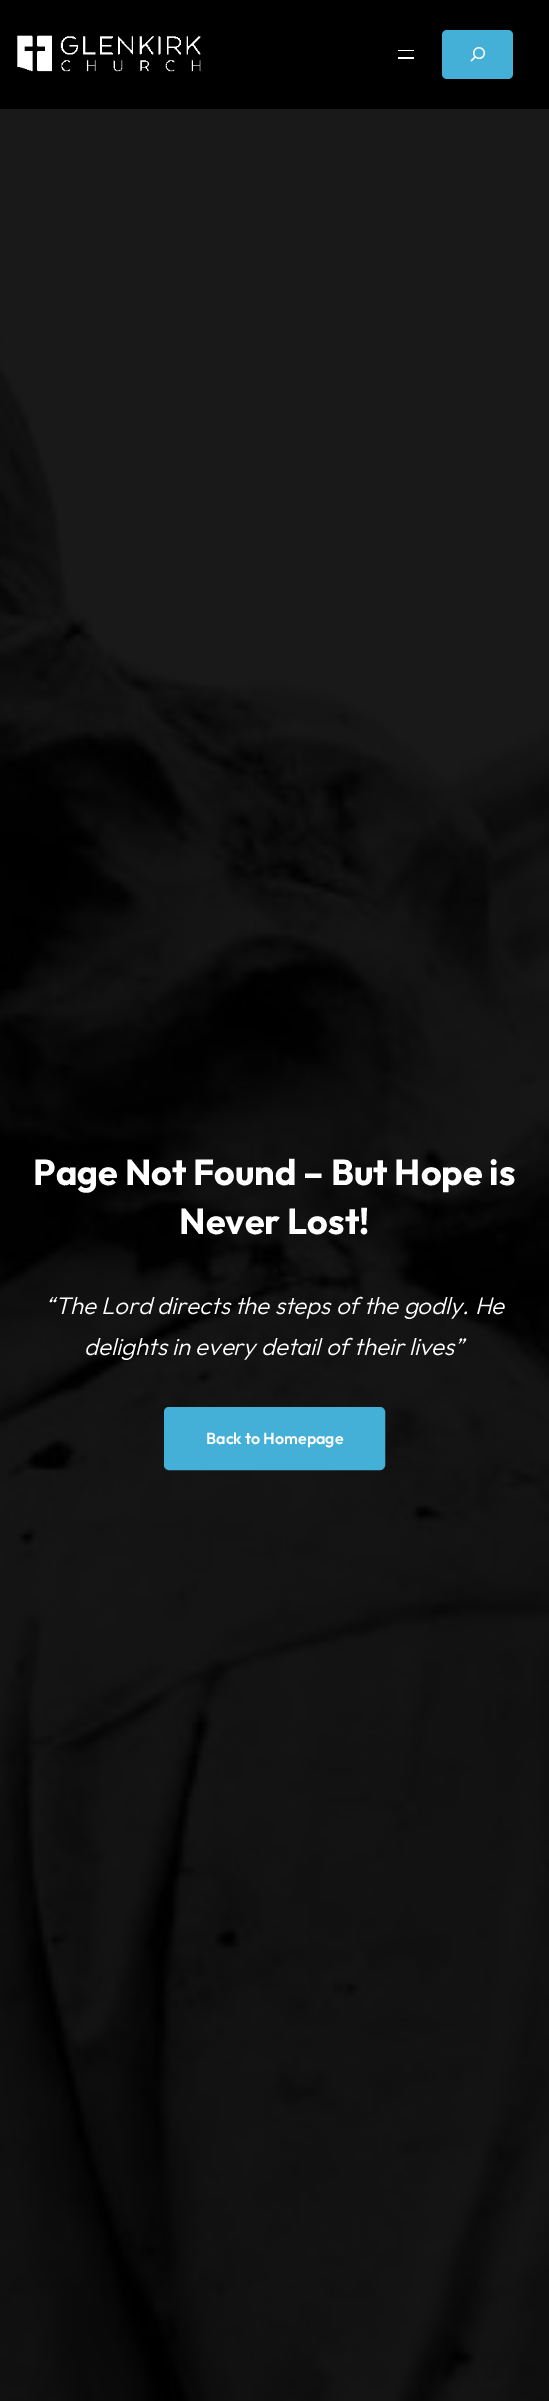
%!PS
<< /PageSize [549 2401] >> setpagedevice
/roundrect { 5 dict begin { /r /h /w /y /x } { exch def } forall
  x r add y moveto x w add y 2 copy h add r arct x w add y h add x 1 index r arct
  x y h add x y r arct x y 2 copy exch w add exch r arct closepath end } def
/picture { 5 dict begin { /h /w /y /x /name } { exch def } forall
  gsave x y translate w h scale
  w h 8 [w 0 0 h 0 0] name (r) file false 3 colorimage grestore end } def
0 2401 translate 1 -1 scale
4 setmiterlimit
0 setgray
0 0 549 2401 rectfill
(img1.rgb) 17 35 184 37 picture
1 setgray
398 50 16 1 rectfill
398 57 16 2 rectfill
0.267 0.69 0.843 setrgbcolor
442 30 71 49 5 roundrect fill
(img2.rgb) 470 47 16 15 picture
(img3.rgb) 0 109 549 2292 picture
/Outfit-Bold [36 0 0 -36 0 0] selectfont
1 setgray
33 1185 moveto (Page Not Found – But Hope is) show
179 1234 moveto (Never Lost!) show
/Outfit-LightItalic [24 0 0 -24 0 0] selectfont
45 1314 moveto (“The Lord directs the steps of the godly. He) show
84 1355 moveto (delights in every detail of their lives”) show
0.267 0.69 0.843 setrgbcolor
165 1408 219 61 4 roundrect gsave fill grestore
2 setlinewidth
stroke
/Outfit-SemiBold [16 0 0 -16 0 0] selectfont
1 setgray
206 1444 moveto (Back to Homepage) show
showpage
